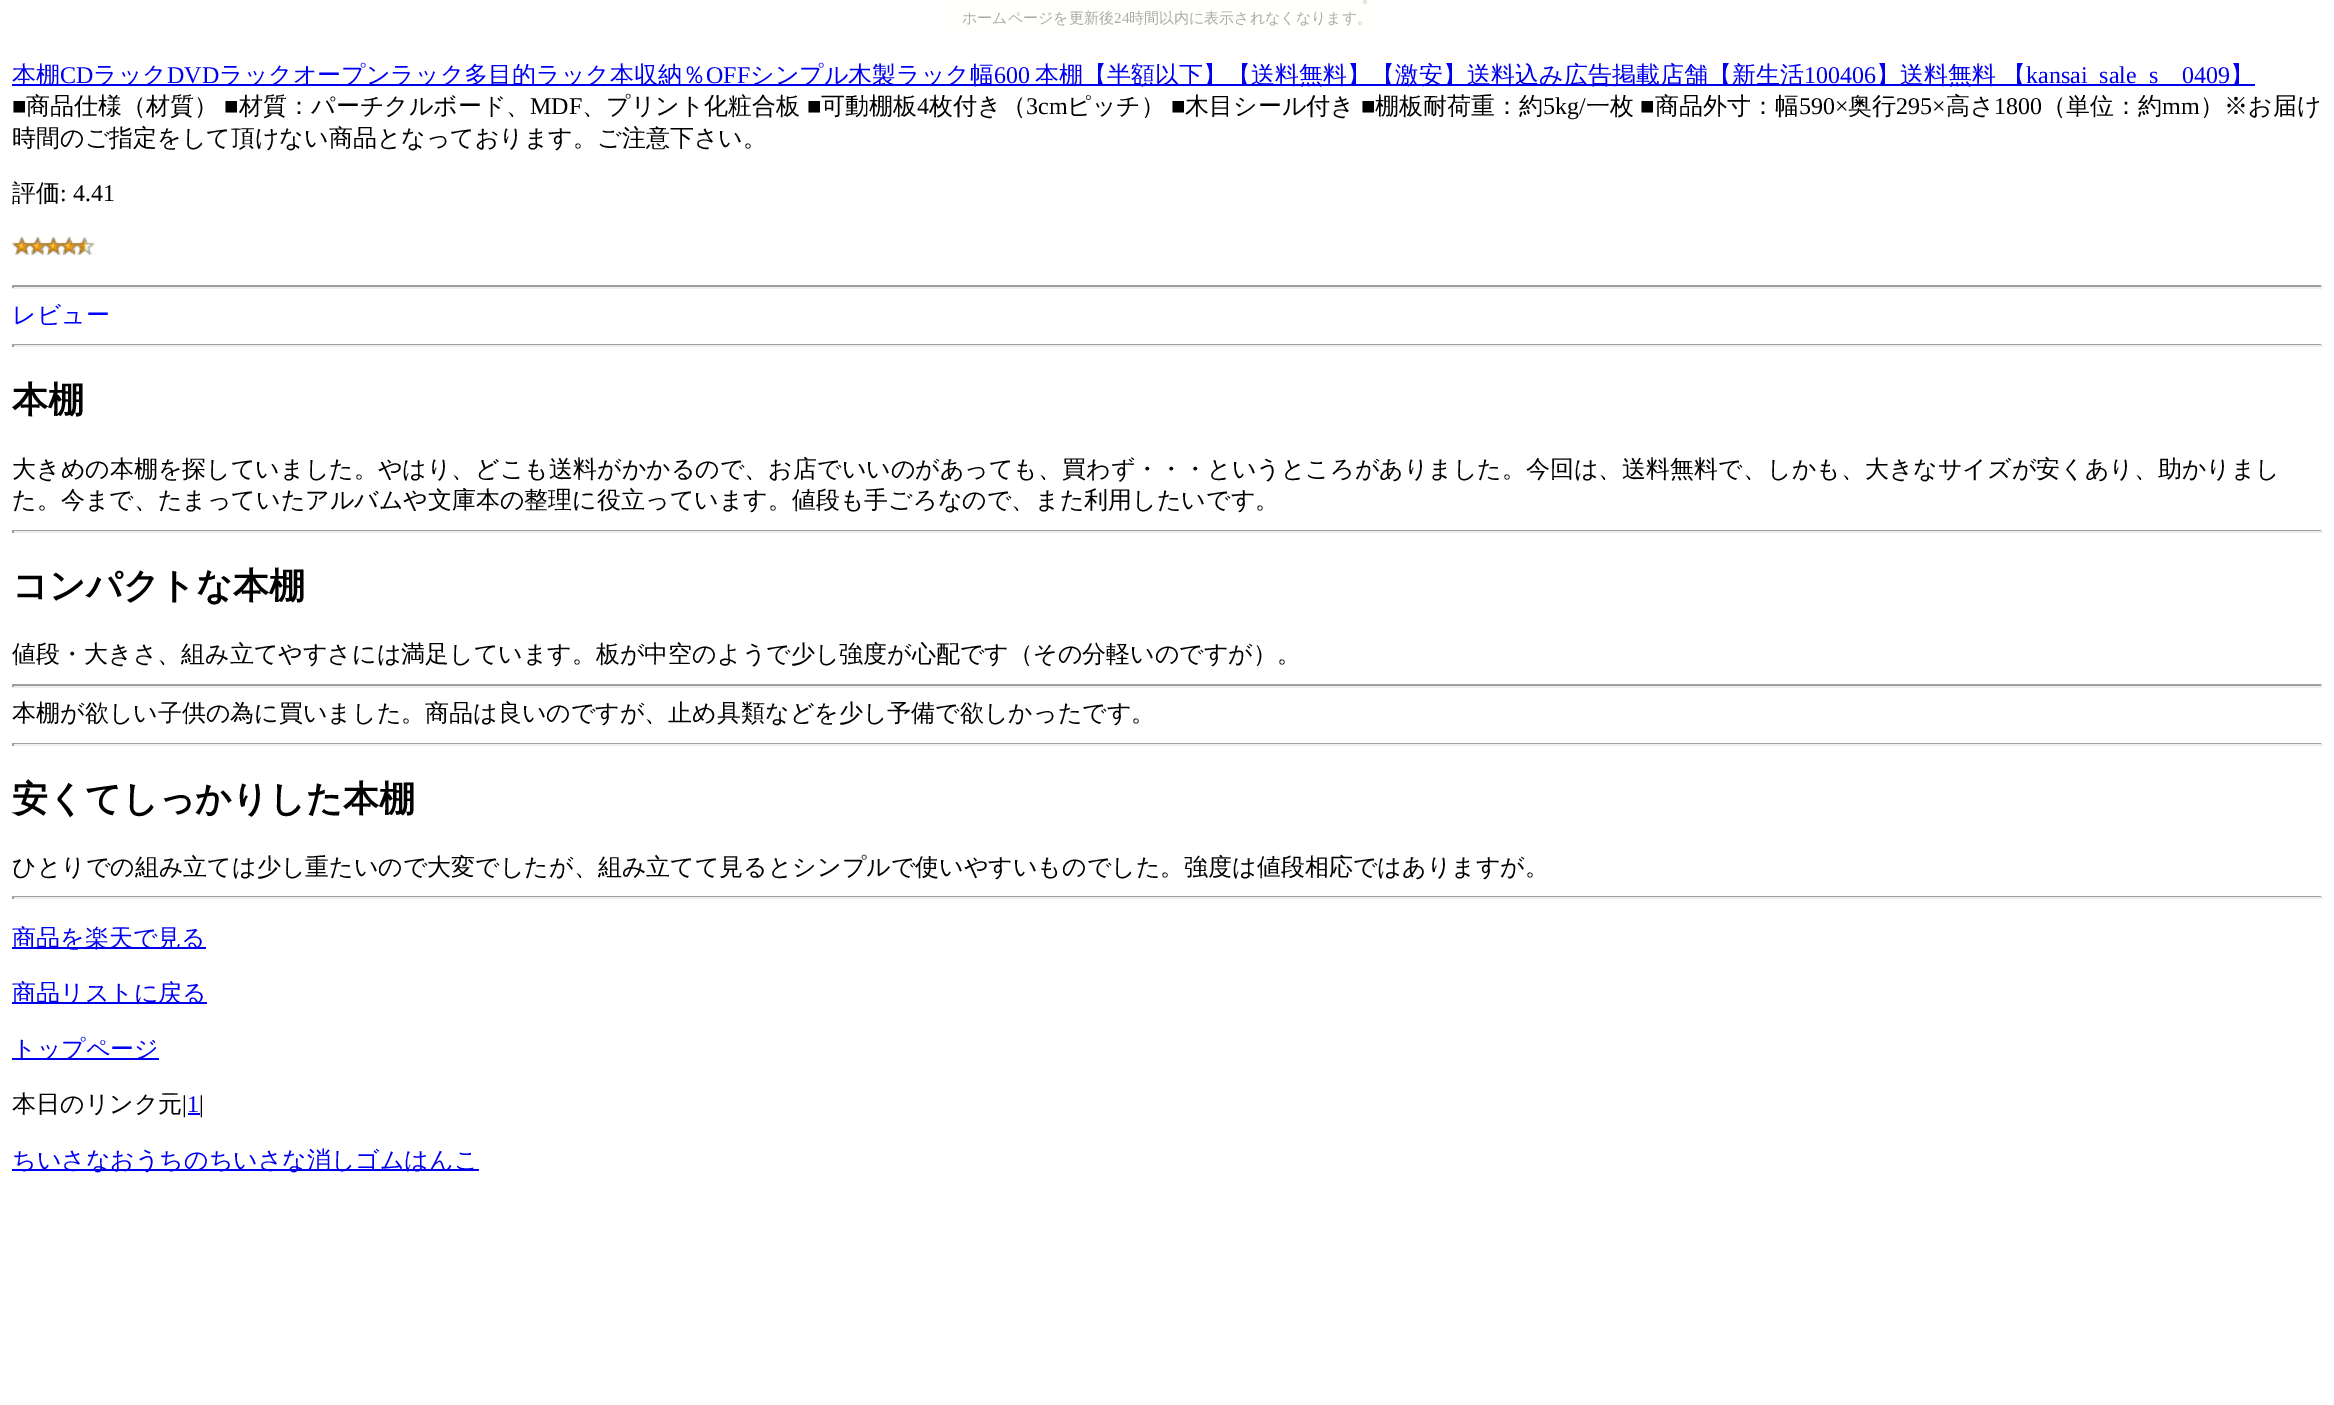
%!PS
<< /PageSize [2334 1405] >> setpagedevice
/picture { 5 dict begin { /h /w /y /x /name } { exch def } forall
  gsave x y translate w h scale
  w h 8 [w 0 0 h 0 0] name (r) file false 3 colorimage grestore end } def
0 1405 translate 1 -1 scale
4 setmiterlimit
1 setgray
0 0 2334 1405 rectfill
1 1 0.988 setrgbcolor
953 0 429 33 rectfill
/WenQuanYiZenHei-Medium [15 0 0 -15 0 0] selectfont
0.667 setgray
1362 2 moveto (。) show
962 23 moveto (ホームページを更新後) show
/LiberationSerif-Regular [15 0 0 -15 0 0] selectfont
1114 23 moveto (24) show
/WenQuanYiZenHei-Medium [15 0 0 -15 0 0] selectfont
1129 23 moveto (時間以内に表示されなくなります。) show
0 0 0.933 setrgbcolor
12 84 2243 2 rectfill
/WenQuanYiZenHei-Medium [24 0 0 -24 0 0] selectfont
12 83 moveto (本棚) show
/LiberationSerif-Regular [24 0 0 -24 0 0] selectfont
60 83 moveto (CD) show
/WenQuanYiZenHei-Medium [24 0 0 -24 0 0] selectfont
93 83 moveto (ラック) show
/LiberationSerif-Regular [24 0 0 -24 0 0] selectfont
167 83 moveto (DVD) show
/WenQuanYiZenHei-Medium [24 0 0 -24 0 0] selectfont
219 83 moveto (ラックオープンラック多目的ラック本収納％) show
/LiberationSerif-Regular [24 0 0 -24 0 0] selectfont
706 83 moveto (OFF) show
/WenQuanYiZenHei-Medium [24 0 0 -24 0 0] selectfont
750 83 moveto (シンプル木製ラック幅) show
/LiberationSerif-Regular [24 0 0 -24 0 0] selectfont
994 83 moveto (600) show
/WenQuanYiZenHei-Medium [24 0 0 -24 0 0] selectfont
1035 83 moveto (本棚【半額以下】【送料無料】【激安】送料込み広告掲載店舗【新生活) show
/LiberationSerif-Regular [24 0 0 -24 0 0] selectfont
1804 83 moveto (100406) show
/WenQuanYiZenHei-Medium [24 0 0 -24 0 0] selectfont
1876 83 moveto -1 0 32 (】送料無料 【) widthshow
/LiberationSerif-Regular [24 0 0 -24 0 0] selectfont
2026 83 moveto (kansai_sale_s) show
2182 83 moveto (0409) show
/WenQuanYiZenHei-Medium [24 0 0 -24 0 0] selectfont
2230 83 moveto (】) show
/LiberationSerif-Regular [24 0 0 -24 0 0] selectfont
0 setgray
12 114 moveto (■) show
/WenQuanYiZenHei-Medium [24 0 0 -24 0 0] selectfont
26 114 moveto (商品仕様（材質）) show
/LiberationSerif-Regular [24 0 0 -24 0 0] selectfont
224 114 moveto (■) show
/WenQuanYiZenHei-Medium [24 0 0 -24 0 0] selectfont
239 114 moveto (材質：パーチクルボード、) show
/LiberationSerif-Regular [24 0 0 -24 0 0] selectfont
530 114 moveto (MDF) show
/WenQuanYiZenHei-Medium [24 0 0 -24 0 0] selectfont
582 114 moveto (、プリント化粧合板) show
/LiberationSerif-Regular [24 0 0 -24 0 0] selectfont
807 114 moveto (■) show
/WenQuanYiZenHei-Medium [24 0 0 -24 0 0] selectfont
821 114 moveto (可動棚板) show
/LiberationSerif-Regular [24 0 0 -24 0 0] selectfont
917 114 moveto (4) show
/WenQuanYiZenHei-Medium [24 0 0 -24 0 0] selectfont
929 114 moveto (枚付き（) show
/LiberationSerif-Regular [24 0 0 -24 0 0] selectfont
1026 114 moveto (3cm) show
/WenQuanYiZenHei-Medium [24 0 0 -24 0 0] selectfont
1067 114 moveto (ピッチ）) show
/LiberationSerif-Regular [24 0 0 -24 0 0] selectfont
1171 114 moveto (■) show
/WenQuanYiZenHei-Medium [24 0 0 -24 0 0] selectfont
1185 114 moveto (木目シール付き) show
/LiberationSerif-Regular [24 0 0 -24 0 0] selectfont
1361 114 moveto (■) show
/WenQuanYiZenHei-Medium [24 0 0 -24 0 0] selectfont
1375 114 moveto (棚板耐荷重：約) show
/LiberationSerif-Regular [24 0 0 -24 0 0] selectfont
1543 114 moveto (5kg/) show
/WenQuanYiZenHei-Medium [24 0 0 -24 0 0] selectfont
1586 114 moveto (一枚) show
/LiberationSerif-Regular [24 0 0 -24 0 0] selectfont
1640 114 moveto (■) show
/WenQuanYiZenHei-Medium [24 0 0 -24 0 0] selectfont
1655 114 moveto (商品外寸：幅) show
/LiberationSerif-Regular [24 0 0 -24 0 0] selectfont
1799 114 moveto (590×) show
/WenQuanYiZenHei-Medium [24 0 0 -24 0 0] selectfont
1848 114 moveto (奥行) show
/LiberationSerif-Regular [24 0 0 -24 0 0] selectfont
1896 114 moveto (295×) show
/WenQuanYiZenHei-Medium [24 0 0 -24 0 0] selectfont
1946 114 moveto (高さ) show
/LiberationSerif-Regular [24 0 0 -24 0 0] selectfont
1994 114 moveto (1800) show
/WenQuanYiZenHei-Medium [24 0 0 -24 0 0] selectfont
2042 114 moveto (（単位：約) show
/LiberationSerif-Regular [24 0 0 -24 0 0] selectfont
2162 114 moveto (mm) show
/WenQuanYiZenHei-Medium [24 0 0 -24 0 0] selectfont
2200 114 moveto (）※お届け) show
12 146 moveto (時間のご指定をして頂けない商品となっております。ご注意下さい。) show
12 201 moveto (評価) show
/LiberationSerif-Regular [24 0 0 -24 0 0] selectfont
60 201 moveto (: 4.41) show
(img1.rgb) 12 237 83 18 picture
0.624 setgray
12 285 2310 2 rectfill
0.933 setgray
2321 285 2 3 rectfill
12 287 2310 2 rectfill
0.624 setgray
12 285 2 3 rectfill
/WenQuanYiZenHei-Medium [24 0 0 -24 0 0] selectfont
0 0 1 setrgbcolor
12 323 moveto (レビュー) show
0.624 setgray
12 344 2310 1 rectfill
0.933 setgray
2321 344 2 3 rectfill
12 345 2310 2 rectfill
0.624 setgray
12 344 2 3 rectfill
/WenQuanYiZenHei-Bold [36 0 0 -36 0 0] selectfont
0 setgray
12 412 moveto (本棚) show
/WenQuanYiZenHei-Medium [24 0 0 -24 0 0] selectfont
12 477 moveto (大きめの本棚を探していました。やはり、どこも送料がかかるので、お店でいいのがあっても、買わず・・・というところがありました。今回は、送料無料で、しかも、大きなサイズが安くあり、助かりまし) show
12 508 moveto (た。今まで、たまっていたアルバムや文庫本の整理に役立っています。値段も手ごろなので、また利用したいです。) show
0.624 setgray
12 530 2310 1 rectfill
0.933 setgray
2321 530 2 3 rectfill
12 531 2310 2 rectfill
0.624 setgray
12 530 2 3 rectfill
/WenQuanYiZenHei-Bold [36 0 0 -36 0 0] selectfont
0 setgray
12 598 moveto (コンパクトな本棚) show
/WenQuanYiZenHei-Medium [24 0 0 -24 0 0] selectfont
12 662 moveto (値段・大きさ、組み立てやすさには満足しています。板が中空のようで少し強度が心配です（その分軽いのですが）。) show
0.624 setgray
12 684 2310 2 rectfill
0.933 setgray
2321 684 2 3 rectfill
12 686 2310 2 rectfill
0.624 setgray
12 684 2 3 rectfill
0 setgray
12 721 moveto (本棚が欲しい子供の為に買いました。商品は良いのですが、止め具類などを少し予備で欲しかったです。) show
0.624 setgray
12 743 2310 1 rectfill
0.933 setgray
2321 743 2 3 rectfill
12 744 2310 2 rectfill
0.624 setgray
12 743 2 3 rectfill
/WenQuanYiZenHei-Bold [36 0 0 -36 0 0] selectfont
0 setgray
12 811 moveto (安くてしっかりした本棚) show
/WenQuanYiZenHei-Medium [24 0 0 -24 0 0] selectfont
12 875 moveto (ひとりでの組み立ては少し重たいので大変でしたが、組み立てて見るとシンプルで使いやすいものでした。強度は値段相応ではありますが。) show
0.624 setgray
12 896 2310 1 rectfill
0.933 setgray
2321 896 2 3 rectfill
12 897 2310 2 rectfill
0.624 setgray
12 896 2 3 rectfill
0 0 0.933 setrgbcolor
12 947 194 2 rectfill
12 946 moveto (商品を楽天で見る) show
12 1002 195 2 rectfill
12 1001 moveto (商品リストに戻る) show
12 1058 147 2 rectfill
12 1057 moveto (トップページ) show
0 setgray
12 1112 moveto (本日のリンク元) show
/LiberationSerif-Regular [24 0 0 -24 0 0] selectfont
182 1112 moveto (|) show
0 0 0.933 setrgbcolor
187 1112 moveto (1) show
188 1113 12 2 rectfill
0 setgray
199 1112 moveto (|) show
0 0 0.933 setrgbcolor
12 1169 467 2 rectfill
/WenQuanYiZenHei-Medium [24 0 0 -24 0 0] selectfont
12 1168 moveto (ちいさなおうちのちいさな消しゴムはんこ) show
showpage
